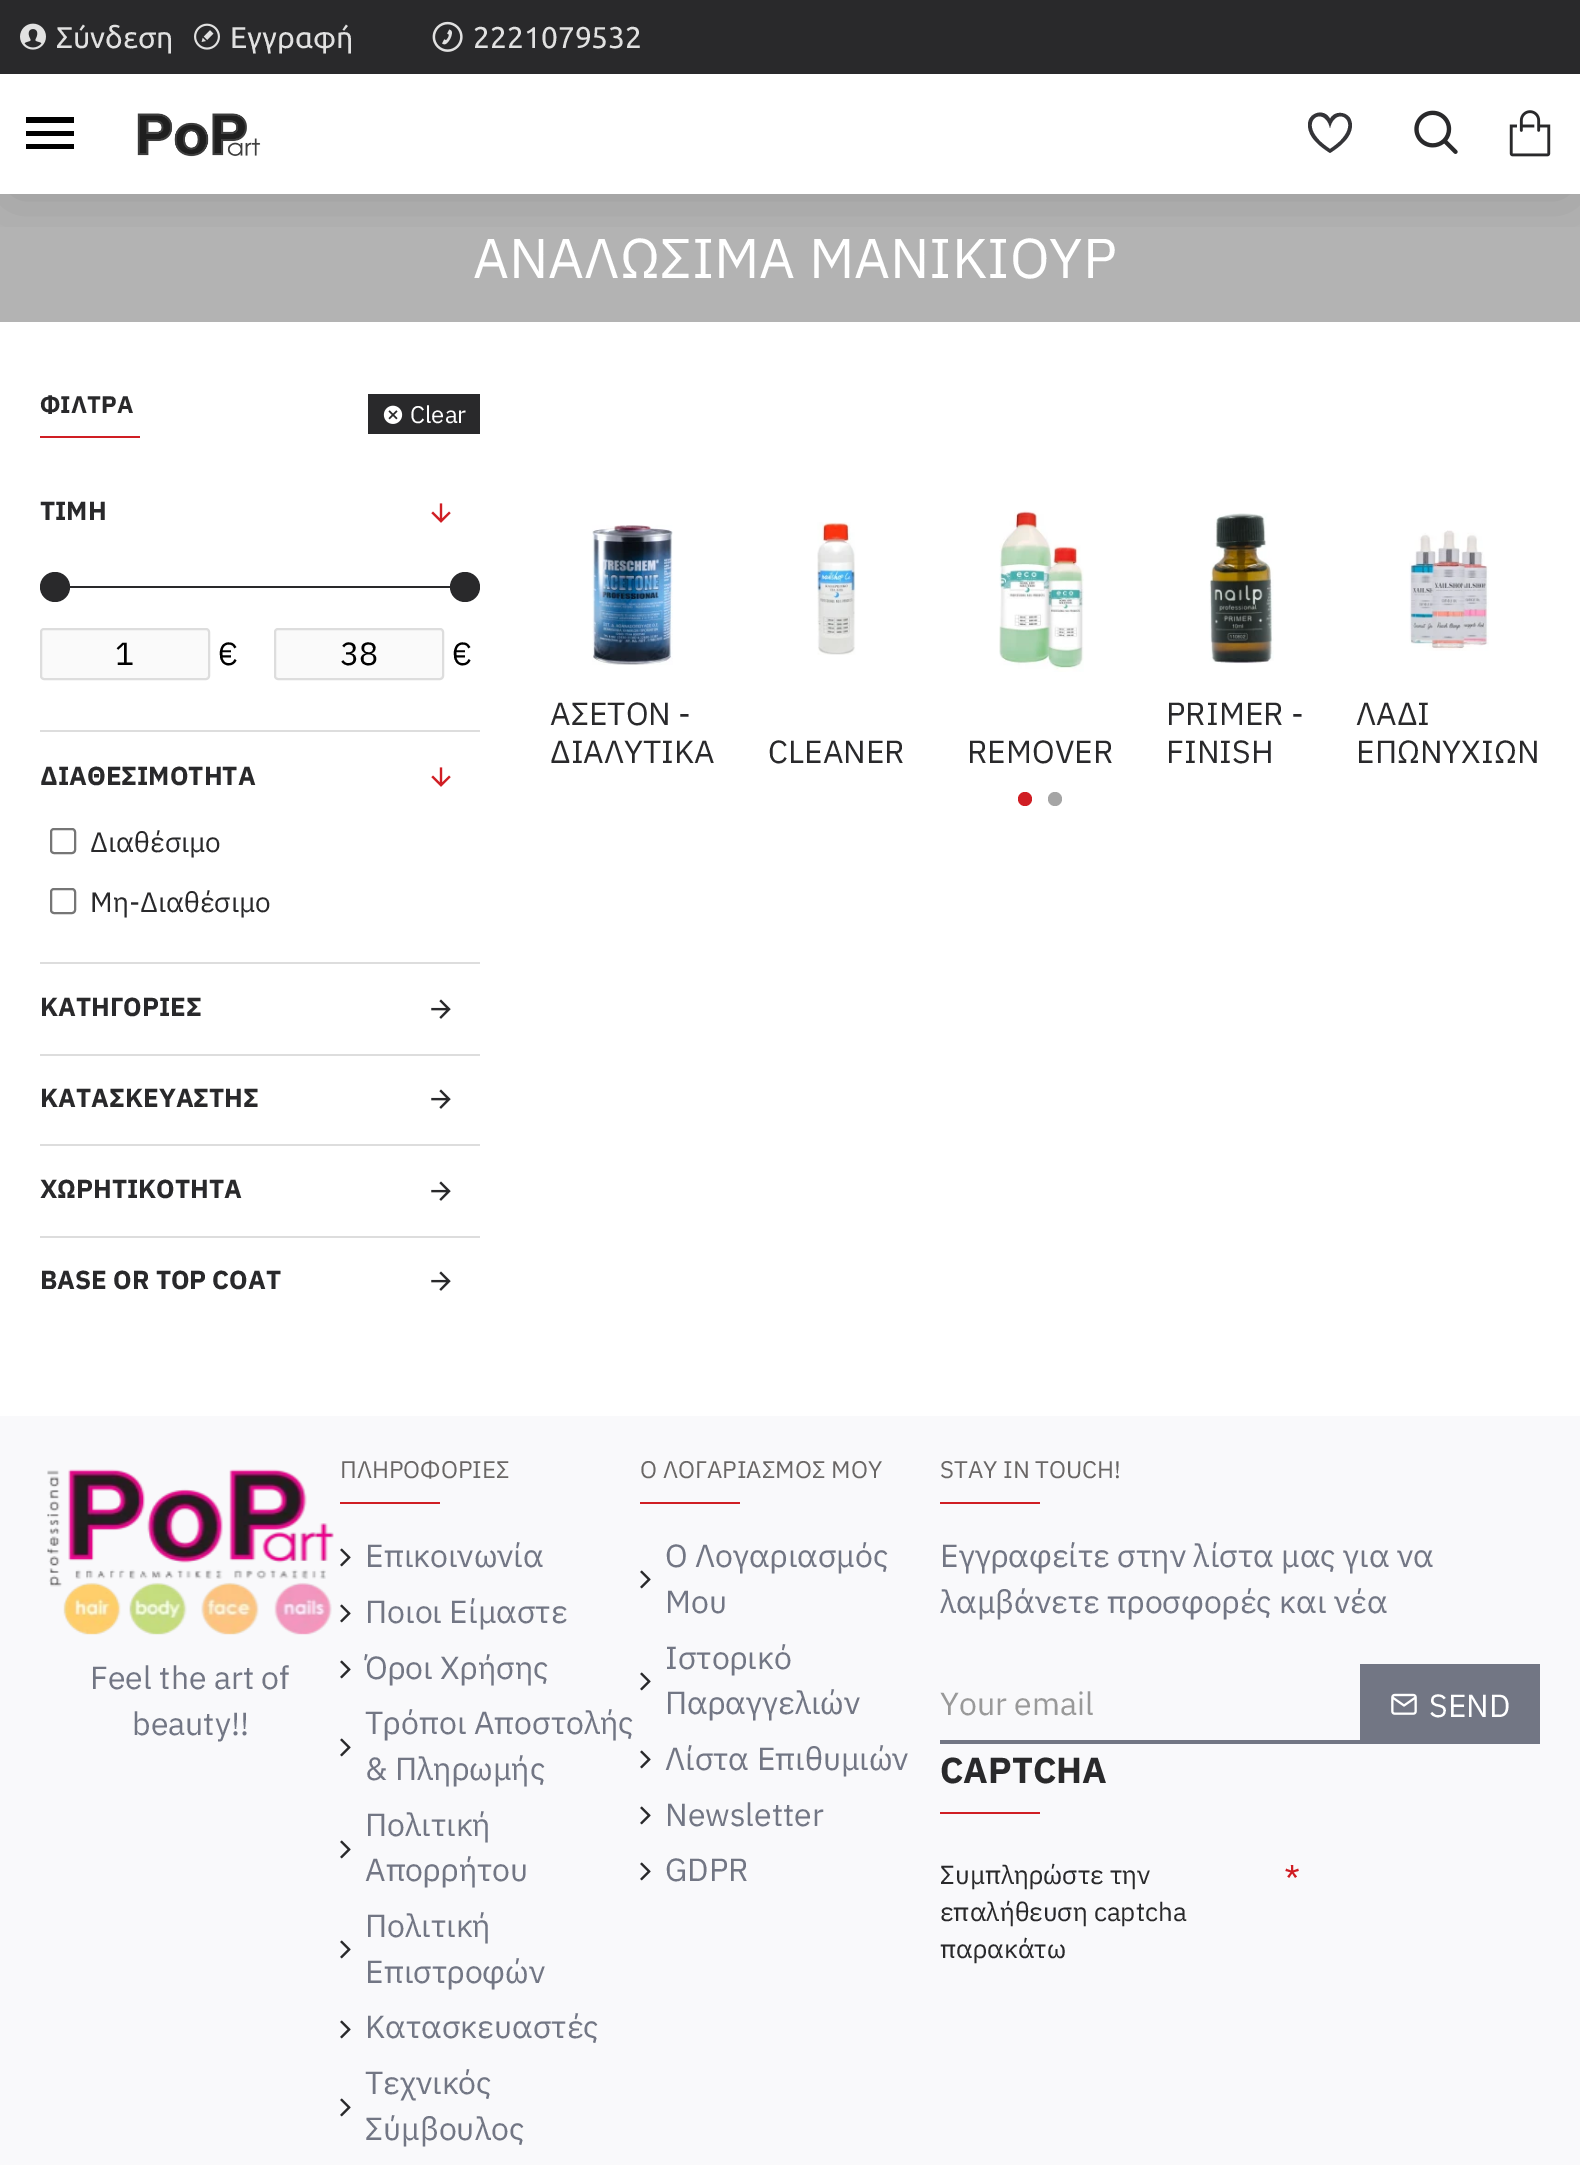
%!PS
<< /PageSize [1580 2165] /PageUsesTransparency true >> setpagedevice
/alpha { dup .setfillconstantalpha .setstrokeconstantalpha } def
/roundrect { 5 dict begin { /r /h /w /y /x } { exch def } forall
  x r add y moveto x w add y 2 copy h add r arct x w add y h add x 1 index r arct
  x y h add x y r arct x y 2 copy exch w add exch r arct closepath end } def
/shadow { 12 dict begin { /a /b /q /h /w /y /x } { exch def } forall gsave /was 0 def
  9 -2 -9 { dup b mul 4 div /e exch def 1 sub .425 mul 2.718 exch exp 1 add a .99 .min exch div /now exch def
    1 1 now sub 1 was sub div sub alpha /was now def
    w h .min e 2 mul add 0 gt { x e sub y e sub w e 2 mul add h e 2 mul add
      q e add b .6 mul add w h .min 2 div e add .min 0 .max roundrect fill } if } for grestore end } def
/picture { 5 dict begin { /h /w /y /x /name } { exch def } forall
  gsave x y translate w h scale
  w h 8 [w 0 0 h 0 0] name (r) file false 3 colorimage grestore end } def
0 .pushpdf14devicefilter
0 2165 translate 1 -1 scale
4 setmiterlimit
1 setgray
0 0 1580 2165 rectfill
0.702 setgray
0 194 1580 128 rectfill
gsave
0 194 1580 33 rectclip
0 setgray
10 94 1560 100 0 30 0.15 shadow
grestore
0 setgray
newpath 26 117 moveto 74 117 lineto 74 123 lineto 26 123 lineto closepath 26 136 moveto 26 131 lineto 74 131 lineto 74 136 lineto closepath 26 149 moveto 26 144 lineto 74 144 lineto 74 149 lineto closepath fill
0.204 0.204 0.22 setrgbcolor
newpath 1330 128 moveto 1336 102 1368 124 1330 149 curveto 1292 124 1324 102 1330 128 curveto closepath 1308 125 moveto 1308 138 1321 147 1330 153 curveto 1339 147 1352 138 1352 125 curveto 1352 123 1351 120 1350 118 curveto 1345 111 1334 111 1330 119 curveto 1325 108 1308 112 1308 125 curveto closepath fill
(img1.rgb) 1414 110 44 44 picture
(img2.rgb) 1509 110 42 47 picture
(img3.rgb) 137 113 124 44 picture
0.161 0.161 0.169 setrgbcolor
0 0 1580 74 rectfill
(img4.rgb) 20 23 26 27 picture
/Ubuntu-Regular [30 0 0 -30 0 0] selectfont
0.882 setgray
56 48 moveto (Σύνδεση) show
(img5.rgb) 194 23 26 27 picture
230 48 moveto (Εγγραφή) show
(img6.rgb) 432 21 31 31 picture
473 48 moveto (2221079532) show
/IBMPlexSans-Regular [56 0 0 -56 0 0] selectfont
1 setgray
473 278 moveto (ΑΝΑΛΩΣΙΜΑ ΜΑΝΙΚΙΟΥΡ) show
/IBMPlexSans-Bold [24 0 0 -24 0 0] selectfont
0.161 0.161 0.169 setrgbcolor
40 413 moveto (ΦΙΛΤΡΑ) show
368 394 112 40 rectfill
(img7.rgb) 383 405 20 19 picture
/IBMPlexSans-Regular [24 0 0 -24 0 0] selectfont
1 setgray
410 423 moveto (Clear) show
0.816 0.118 0.141 setrgbcolor
40 436 100 2 rectfill
/IBMPlexSans-Bold [26 0 0 -26 0 0] selectfont
0.161 0.161 0.169 setrgbcolor
40 520 moveto (ΤΙΜΗ) show
(img8.rgb) 431 503 20 20 picture
newpath 66 586 moveto 456 586 lineto 462 586 466 587 466 587 curveto 466 588 462 588 456 588 curveto 66 588 lineto 60 588 56 588 56 587 curveto 56 587 60 586 66 586 curveto closepath fill
newpath 55 587 15 0 360 arc closepath fill
newpath 465 587 15 0 360 arc closepath fill
0.98 setgray
41 629 168 50 3 roundrect gsave fill grestore
0.867 setgray
2 setlinewidth
stroke
/IBMPlexSans-Regular [32 0 0 -32 0 0] selectfont
0 setgray
115 665 moveto (1) show
218 665 moveto (€) show
0.98 setgray
275 629 168 50 3 roundrect gsave fill grestore
0.867 setgray
stroke
0 setgray
340 665 moveto (38) show
452 665 moveto (€) show
0.867 setgray
40 730 440 2 rectfill
/IBMPlexSans-Bold [26 0 0 -26 0 0] selectfont
0.161 0.161 0.169 setrgbcolor
40 785 moveto (ΔΙΑΘΕΣΙΜΟΤΗΤΑ) show
(img8.rgb) 431 767 20 20 picture
0.463 setgray
51 829 24 24 3 roundrect stroke
/IBMPlexSans-Regular [28 0 0 -28 0 0] selectfont
0.161 0.161 0.169 setrgbcolor
90 852 moveto (Διαθέσιμο) show
0.463 setgray
51 889 24 24 3 roundrect stroke
0.161 0.161 0.169 setrgbcolor
90 912 moveto (Μη-Διαθέσιμο) show
0.867 setgray
40 962 440 2 rectfill
/IBMPlexSans-Bold [26 0 0 -26 0 0] selectfont
0.161 0.161 0.169 setrgbcolor
40 1016 moveto (ΚΑΤΗΓΟΡΙΕΣ) show
(img9.rgb) 431 999 20 20 picture
0.867 setgray
40 1054 440 2 rectfill
0.161 0.161 0.169 setrgbcolor
40 1107 moveto (ΚΑΤΑΣΚΕΥΑΣΤΗΣ) show
(img9.rgb) 431 1089 20 20 picture
0.867 setgray
40 1144 440 2 rectfill
0.161 0.161 0.169 setrgbcolor
40 1198 moveto (ΧΩΡΗΤΙΚΟΤΗΤΑ) show
(img9.rgb) 431 1181 20 20 picture
0.867 setgray
40 1236 440 2 rectfill
0.161 0.161 0.169 setrgbcolor
40 1289 moveto (BASE OR TOP COAT) show
(img9.rgb) 431 1271 20 20 picture
(img10.rgb) 592 525 81 140 picture
/IBMPlexSans-Regular [32 0 0 -32 0 0] selectfont
550 725 moveto (ΑΣΕΤΟΝ -) show
550 763 moveto (ΔΙΑΛΥΤΙΚΑ) show
(img11.rgb) 817 522 39 133 picture
768 763 moveto (CLEANER) show
(img12.rgb) 999 510 85 162 picture
967 763 moveto (REMOVER) show
(img13.rgb) 1209 513 65 151 picture
1166 725 moveto (PRIMER -) show
1166 763 moveto (FINISH) show
(img14.rgb) 1409 530 80 121 picture
1356 725 moveto (ΛΑΔΙ) show
1356 763 moveto (ΕΠΩΝΥΧΙΩΝ) show
0.816 0.118 0.141 setrgbcolor
newpath 1025 799 7 0 360 arc closepath fill
0.647 setgray
newpath 1055 799 7 0 360 arc closepath fill
0.976 0.976 0.984 setrgbcolor
0 1416 1580 749 rectfill
(img15.rgb) 47 1469 287 166 picture
0.447 0.463 0.518 setrgbcolor
90 1689 moveto (Feel the art of) show
132 1735 moveto (beauty!!) show
/IBMPlexSans-Regular [24 0 0 -24 0 0] selectfont
0.412 0.4 0.396 setrgbcolor
340 1478 moveto (ΠΛΗΡΟΦΟΡΙΕΣ) show
0.816 0.118 0.141 setrgbcolor
340 1502 100 2 rectfill
(img16.rgb) 340 1548 11 19 picture
/IBMPlexSans-Regular [32 0 0 -32 0 0] selectfont
0.447 0.463 0.518 setrgbcolor
365 1567 moveto (Επικοινωνία) show
(img16.rgb) 340 1604 11 19 picture
365 1623 moveto (Ποιοι Είμαστε) show
(img16.rgb) 340 1660 11 19 picture
365 1679 moveto (Όροι Χρήσης) show
(img16.rgb) 340 1738 11 19 picture
365 1734 moveto (Τρόποι Αποστολής) show
365 1780 moveto (& Πληρωμής) show
(img16.rgb) 340 1840 11 19 picture
365 1836 moveto (Πολιτική) show
365 1881 moveto (Απορρήτου) show
(img16.rgb) 340 1940 11 19 picture
365 1937 moveto (Πολιτική) show
365 1983 moveto (Επιστροφών) show
(img16.rgb) 340 2020 11 19 picture
365 2038 moveto (Κατασκευαστές) show
(img16.rgb) 340 2098 11 19 picture
365 2094 moveto (Τεχνικός) show
365 2140 moveto (Σύμβουλος) show
/IBMPlexSans-Regular [24 0 0 -24 0 0] selectfont
0.412 0.4 0.396 setrgbcolor
640 1478 moveto (Ο ΛΟΓΑΡΙΑΣΜΟΣ ΜΟΥ) show
0.816 0.118 0.141 setrgbcolor
640 1502 100 2 rectfill
(img16.rgb) 640 1570 11 19 picture
/IBMPlexSans-Regular [32 0 0 -32 0 0] selectfont
0.447 0.463 0.518 setrgbcolor
665 1567 moveto (Ο Λογαριασμός) show
665 1613 moveto (Μου) show
(img16.rgb) 640 1672 11 19 picture
665 1669 moveto (Ιστορικό) show
665 1714 moveto (Παραγγελιών) show
(img16.rgb) 640 1750 11 19 picture
665 1770 moveto (Λίστα Επιθυμιών) show
(img16.rgb) 640 1806 11 19 picture
665 1826 moveto (Newsletter) show
(img16.rgb) 640 1862 11 19 picture
665 1881 moveto (GDPR) show
/IBMPlexSans-Regular [24 0 0 -24 0 0] selectfont
0.412 0.4 0.396 setrgbcolor
940 1478 moveto (STAY IN TOUCH!) show
0.816 0.118 0.141 setrgbcolor
940 1502 100 2 rectfill
/IBMPlexSans-Regular [32 0 0 -32 0 0] selectfont
0.447 0.463 0.518 setrgbcolor
940 1567 moveto (Εγγραφείτε στην λίστα μας για να) show
940 1613 moveto (λαμβάνετε προσφορές και νέα) show
940 1740 420 4 rectfill
0.6 setgray
940 1715 moveto (Your email) show
0.447 0.463 0.518 setrgbcolor
1360 1664 180 80 rectfill
(img17.rgb) 1391 1693 26 22 picture
1 setgray
1429 1717 moveto (SEND) show
/IBMPlexSans-Bold [36 0 0 -36 0 0] selectfont
0.161 0.161 0.169 setrgbcolor
940 1783 moveto (CAPTCHA) show
0.816 0.118 0.141 setrgbcolor
940 1812 100 2 rectfill
/IBMPlexSans-Regular [26 0 0 -26 0 0] selectfont
0.161 0.161 0.169 setrgbcolor
940 1884 moveto (Συμπληρώστε την) show
/IBMPlexSans-Regular [36 0 0 -36 0 0] selectfont
0.816 0.118 0.141 setrgbcolor
1284 1892 moveto (*) show
/IBMPlexSans-Regular [26 0 0 -26 0 0] selectfont
0.161 0.161 0.169 setrgbcolor
940 1921 moveto (επαλήθευση captcha) show
940 1958 moveto (παρακάτω) show
.poppdf14devicefilter showpage
